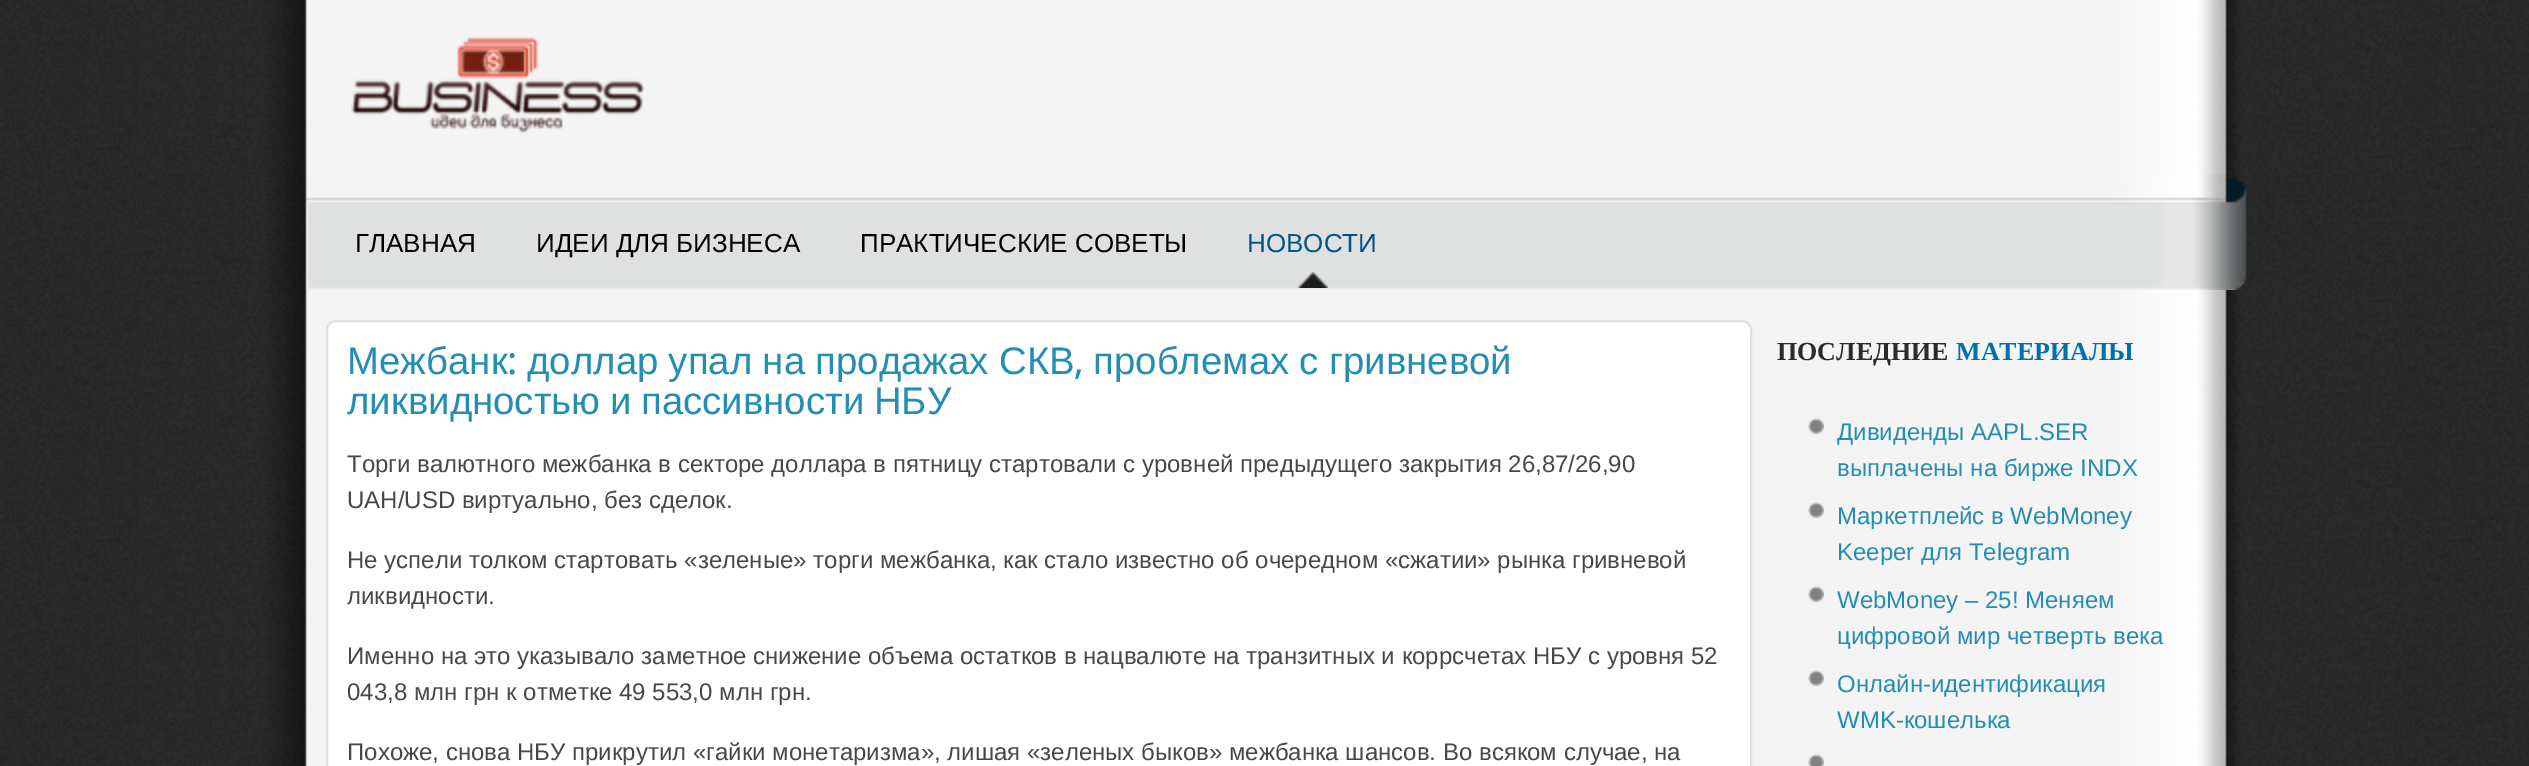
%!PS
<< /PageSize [2529 766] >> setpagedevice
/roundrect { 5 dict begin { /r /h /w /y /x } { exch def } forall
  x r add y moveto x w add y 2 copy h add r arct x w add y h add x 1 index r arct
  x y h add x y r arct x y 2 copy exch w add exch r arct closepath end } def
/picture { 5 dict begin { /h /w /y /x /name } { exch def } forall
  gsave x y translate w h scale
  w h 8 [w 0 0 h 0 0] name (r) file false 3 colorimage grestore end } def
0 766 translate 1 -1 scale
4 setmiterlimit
1 setgray
0 0 2529 766 rectfill
(img1.rgb) 0 0 2529 766 picture
(img2.rgb) 138 0 2256 174 picture
(img3.rgb) 351 37 293 96 picture
(img4.rgb) 136 174 2260 116 picture
/LiberationSans-Regular [26 0 0 -26 0 0] selectfont
0 setgray
355 252 moveto (ГЛАВНАЯ) show
536 252 moveto (ИДЕИ ДЛЯ БИЗНЕСА) show
860 252 moveto (ПРАКТИЧЕСКИЕ СОВЕТЫ) show
(img5.rgb) 1298 272 30 16 picture
0 0.333 0.522 setrgbcolor
1247 252 moveto (НОВОСТИ) show
(img6.rgb) 138 290 2256 476 picture
1 setgray
327 321 1424 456 9 roundrect gsave fill grestore
0.878 setgray
2 setlinewidth
stroke
/LiberationSans-Regular [38.4 0 0 -38.4 0 0] selectfont
0.137 0.553 0.706 setrgbcolor
347 374 moveto (Межбанк) show
/DroidSans-Regular [38.4 0 0 -38.4 0 0] selectfont
507 374 moveto (:) show
/LiberationSans-Regular [38.4 0 0 -38.4 0 0] selectfont
527 374 moveto -0.5 0 32 (доллар упал на продажах СКВ) widthshow
/DroidSans-Regular [38.4 0 0 -38.4 0 0] selectfont
1074 374 moveto (,) show
/LiberationSans-Regular [38.4 0 0 -38.4 0 0] selectfont
1093 374 moveto -0.5 0 32 (проблемах с гривневой) widthshow
347 414 moveto -1 0 32 (ликвидностью и пассивности НБУ) widthshow
/LiberationSans-Regular [24 0 0 -24 0 0] selectfont
0.278 setgray
347 472 moveto (Торги валютного межбанка в секторе доллара в пятницу стартовали с уровней предыдущего закрытия 26,87/26,90) show
347 508 moveto (UAH/USD виртуально, без сделок.) show
347 568 moveto (Не успели толком стартовать «зеленые» торги межбанка, как стало известно об очередном «сжатии» рынка гривневой) show
347 604 moveto (ликвидности.) show
347 664 moveto (Именно на это указывало заметное снижение объема остатков в нацвалюте на транзитных и коррсчетах НБУ с уровня 52) show
347 700 moveto (043,8 млн грн к отметке 49 553,0 млн грн.) show
347 760 moveto (Похоже, снова НБУ прикрутил «гайки монетаризма», лишая «зеленых быков» межбанка шансов. Во всяком случае, на) show
/LiberationSerif-Bold [26 0 0 -26 0 0] selectfont
0.169 setgray
1777 360 moveto (ПОСЛЕДНИЕ) show
0 0.435 0.69 setrgbcolor
1956 360 moveto (МАТЕРИАЛЫ) show
(img7.rgb) 1808 418 16 16 picture
/LiberationSans-Regular [24 0 0 -24 0 0] selectfont
0.137 0.553 0.706 setrgbcolor
1837 440 moveto (Дивиденды AAPL.SER) show
1837 476 moveto (выплачены на бирже INDX) show
(img7.rgb) 1808 502 16 16 picture
1837 524 moveto (Маркетплейс в WebMoney) show
1837 560 moveto (Keeper для Telegram) show
(img7.rgb) 1808 586 16 16 picture
1837 608 moveto (WebMoney – 25! Меняем) show
1837 644 moveto (цифровой мир четверть века) show
(img7.rgb) 1808 670 16 16 picture
1837 692 moveto (Онлайн-идентификация) show
1837 728 moveto (WMK-кошелька) show
(img8.rgb) 1808 754 16 12 picture
showpage
